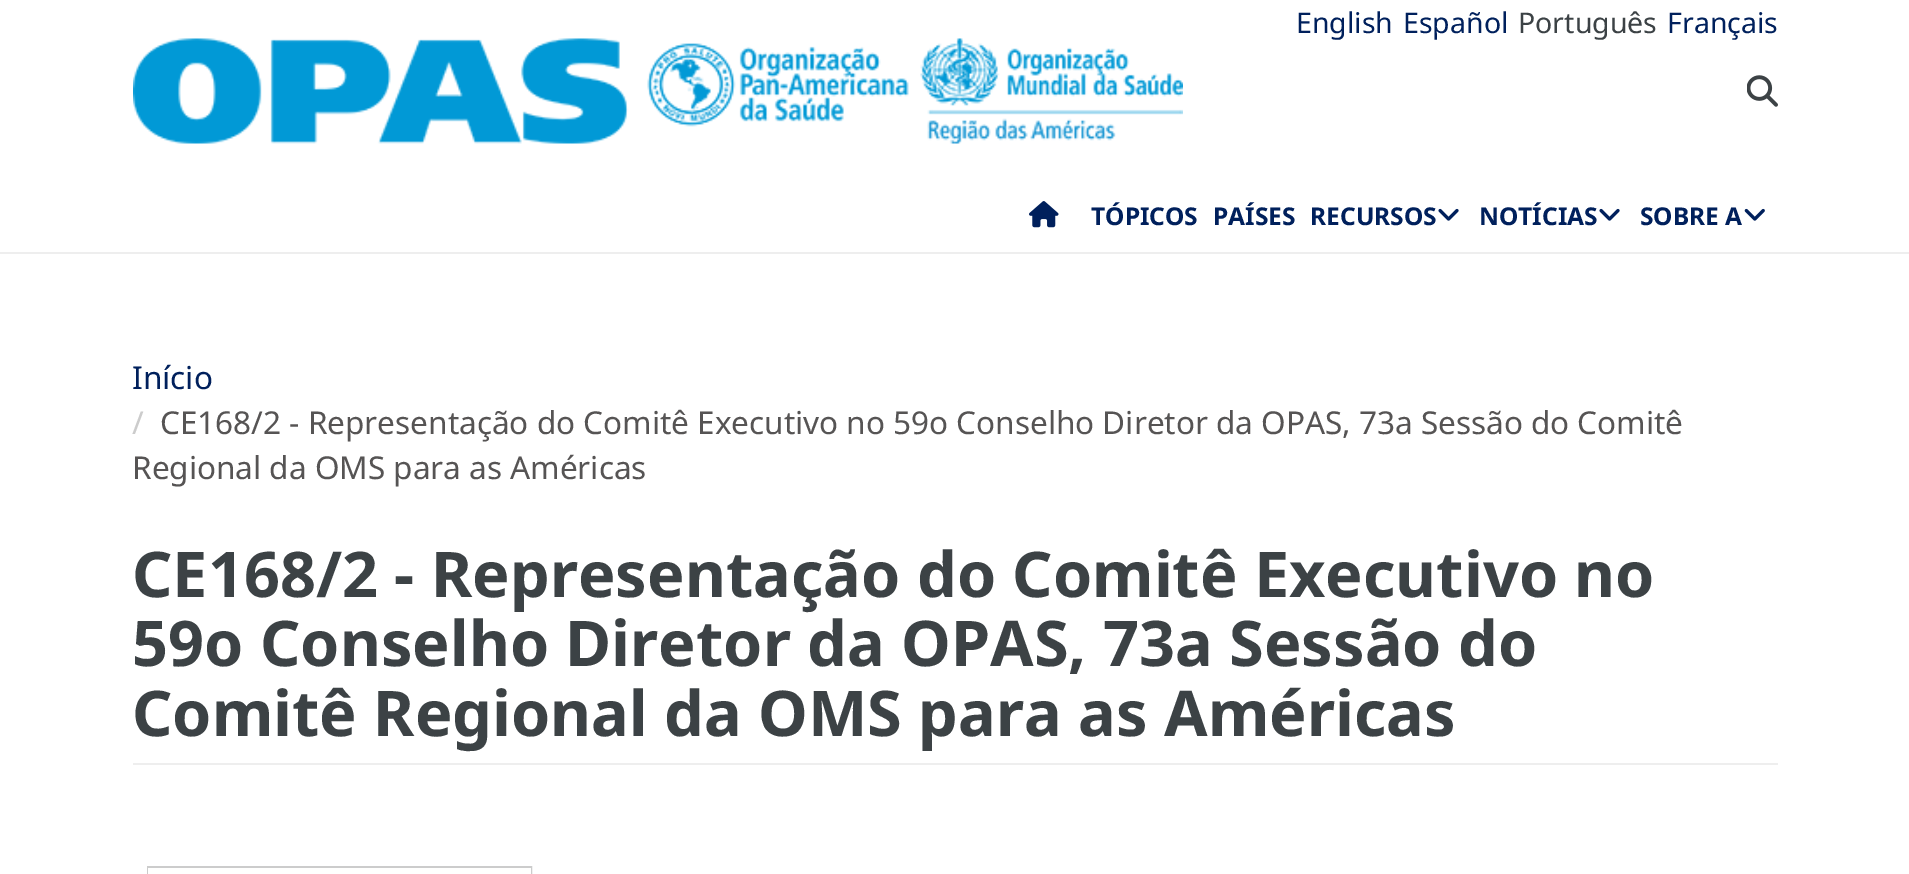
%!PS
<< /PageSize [1909 874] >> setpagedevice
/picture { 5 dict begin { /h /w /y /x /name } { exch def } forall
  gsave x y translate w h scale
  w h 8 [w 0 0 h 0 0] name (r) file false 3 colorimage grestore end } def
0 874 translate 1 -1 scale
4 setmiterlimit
1 setgray
0 0 1909 874 rectfill
0.933 setgray
0 252 1909 2 rectfill
/NotoSans-Regular [28.5 0 0 -28.5 0 0] selectfont
0 0.125 0.361 setrgbcolor
1296 33 moveto (English) show
1403 33 moveto (Español) show
0.235 0.259 0.271 setrgbcolor
1518 33 moveto (Português) show
0 0.125 0.361 setrgbcolor
1667 33 moveto (Français) show
(img1.rgb) 133 38 1050 106 picture
(img2.rgb) 1747 75 31 32 picture
(img3.rgb) 1029 201 30 27 picture
/NotoSans-Bold [24.5 0 0 -24.5 0 0] selectfont
1091 225 moveto (TÓPICOS) show
1213 225 moveto (PAÍSES) show
1310 225 moveto (RECURSOS) show
(img4.rgb) 1438 208 21 13 picture
1479 225 moveto (NOTÍCIAS) show
(img4.rgb) 1599 208 21 13 picture
1640 225 moveto (SOBRE A) show
(img5.rgb) 1744 208 21 13 picture
/NotoSans-Regular [31.5 0 0 -31.5 0 0] selectfont
132 389 moveto (Início) show
0.8 setgray
132 434 moveto (/) show
0.337 0.329 0.329 setrgbcolor
160 434 moveto (CE168/2 - Representação do Comitê Executivo no 59o Conselho Diretor da OPAS, 73a Sessão do Comitê) show
132 479 moveto (Regional da OMS para as Américas) show
0.933 setgray
133 763 1645 2 rectfill
/NotoSans-Bold [63 0 0 -63 0 0] selectfont
0.235 0.259 0.271 setrgbcolor
132 597 moveto (CE168/2 - Representação do Comitê Executivo no) show
132 666 moveto (59o Conselho Diretor da OPAS, 73a Sessão do) show
132 736 moveto (Comitê Regional da OMS para as Américas) show
0.8 setgray
2 setlinewidth
148 867 383 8 rectstroke
1 1 0.996 setrgbcolor
148 868 383 6 rectfill
showpage
